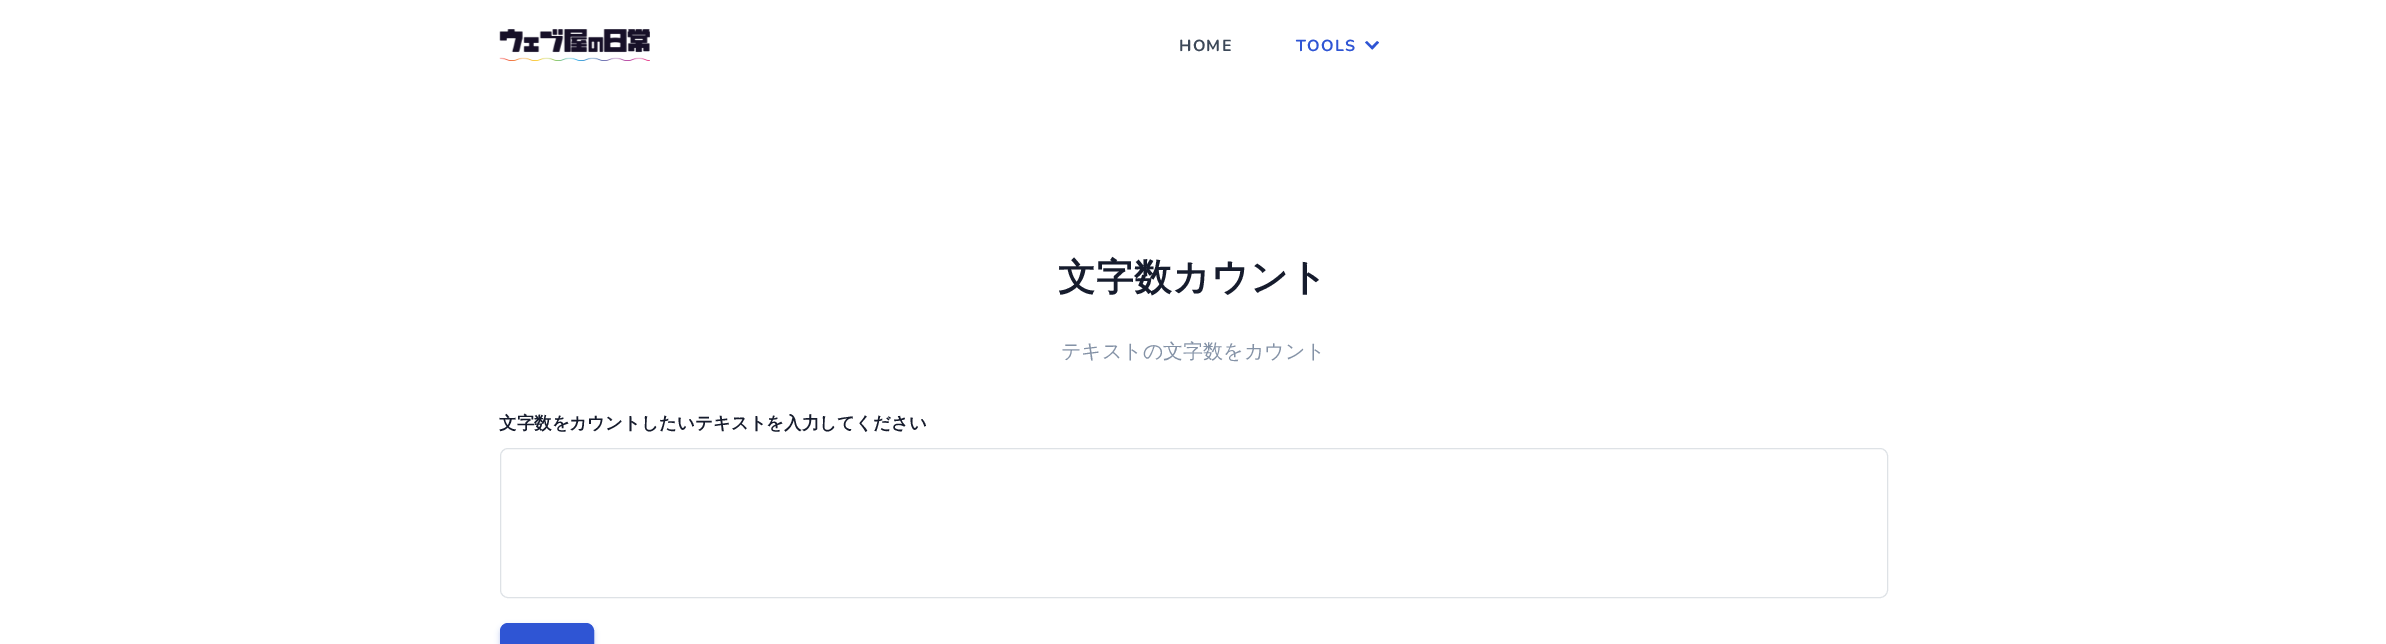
%!PS
<< /PageSize [2386 644] /PageUsesTransparency true >> setpagedevice
/alpha { dup .setfillconstantalpha .setstrokeconstantalpha } def
/roundrect { 5 dict begin { /r /h /w /y /x } { exch def } forall
  x r add y moveto x w add y 2 copy h add r arct x w add y h add x 1 index r arct
  x y h add x y r arct x y 2 copy exch w add exch r arct closepath end } def
/shadow { 12 dict begin { /a /b /q /h /w /y /x } { exch def } forall gsave /was 0 def
  9 -2 -9 { dup b mul 4 div /e exch def 1 sub .425 mul 2.718 exch exp 1 add a .99 .min exch div /now exch def
    1 1 now sub 1 was sub div sub alpha /was now def
    w h .min e 2 mul add 0 gt { x e sub y e sub w e 2 mul add h e 2 mul add
      q e add b .6 mul add w h .min 2 div e add .min 0 .max roundrect fill } if } for grestore end } def
/picture { 5 dict begin { /h /w /y /x /name } { exch def } forall
  gsave x y translate w h scale
  w h 8 [w 0 0 h 0 0] name (r) file false 3 colorimage grestore end } def
0 .pushpdf14devicefilter
0 644 translate 1 -1 scale
4 setmiterlimit
1 setgray
0 0 2386 644 rectfill
(img1.rgb) 499 29 151 32 picture
/Nunito-Bold [16 0 0 -16 0 0] selectfont
0.235 0.282 0.345 setrgbcolor
1179 51 moveto 1.25 0 (HOME) ashow
0.184 0.333 0.831 setrgbcolor
1296 51 moveto 1.25 0 (TOOLS) ashow
newpath 1377 41 moveto 1379 42.5 lineto 1372.5 49.5 lineto 1370.5 47.5 lineto closepath fill
newpath 1367 41 moveto 1373.5 47.5 lineto 1372 49.5 lineto 1365 42.5 lineto closepath fill
/WenQuanYiZenHei-Bold [37.5 0 0 -37.5 0 0] selectfont
0.086 0.11 0.176 setrgbcolor
1058 290 moveto 0.5 0 (文字数カウント) ashow
/WenQuanYiZenHei-Medium [20 0 0 -20 0 0] selectfont
0.518 0.573 0.651 setrgbcolor
1061 358 moveto (テキストの文字数をカウント) show
/WenQuanYiZenHei-Bold [17.5 0 0 -17.5 0 0] selectfont
0.086 0.11 0.176 setrgbcolor
499 429 moveto (文字数をカウントしたいテキストを入力してください) show
0.871 0.886 0.902 setrgbcolor
500.5 448.5 1387 149 7.5 roundrect stroke
0.184 0.333 0.831 setrgbcolor
500 626 94 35 8 3 0.3 shadow
500.5 623.5 93 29 7.5 roundrect gsave fill grestore
stroke
.poppdf14devicefilter showpage
